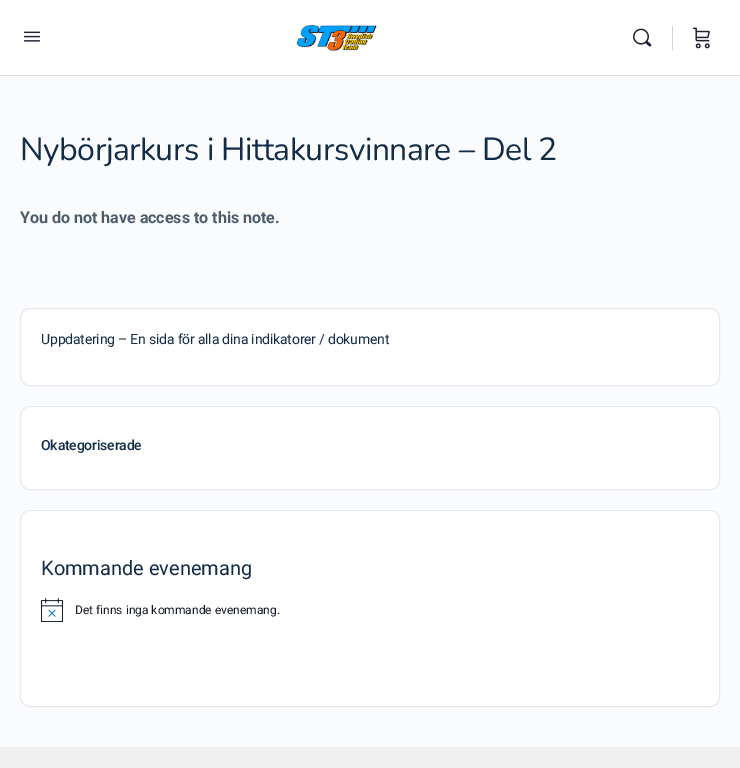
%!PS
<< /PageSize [740 768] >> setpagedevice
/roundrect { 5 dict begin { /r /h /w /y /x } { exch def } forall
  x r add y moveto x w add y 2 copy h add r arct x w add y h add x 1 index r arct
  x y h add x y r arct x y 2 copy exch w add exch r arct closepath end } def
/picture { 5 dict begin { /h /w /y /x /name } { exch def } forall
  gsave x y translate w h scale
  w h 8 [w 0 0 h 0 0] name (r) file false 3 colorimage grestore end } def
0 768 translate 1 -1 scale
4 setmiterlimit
0.98 0.984 0.992 setrgbcolor
0 0 740 768 rectfill
1 setgray
0 0 740 75 rectfill
0.863 0.875 0.89 setrgbcolor
0 75 740 1 rectfill
(img1.rgb) 24 31 16 11 picture
(img2.rgb) 297 25 80 26 picture
(img3.rgb) 633 28 19 19 picture
0.824 0.827 0.839 setrgbcolor
672 26 1 24 rectfill
(img4.rgb) 693 27 17 22 picture
/Nunito-ExtraLight [32 0 0 -32 0 0] selectfont
0.071 0.169 0.275 setrgbcolor
20 160 moveto -0.5 0 (Nybörjarkurs i Hittakursvinnare – Del 2) ashow
/Roboto-Bold [16 0 0 -16 0 0] selectfont
0.302 0.361 0.427 setrgbcolor
20 223 moveto (You do not have access to this note.) show
1 setgray
20.5 308.5 699 77 9.5 roundrect gsave fill grestore
0.906 0.914 0.925 setrgbcolor
stroke
/Roboto-Regular [14 0 0 -14 0 0] selectfont
0.071 0.169 0.275 setrgbcolor
41 344 moveto -0.2 0 (Uppdatering – En sida för alla dina indikatorer / dokument) ashow
1 setgray
20.5 406.5 699 83 9.5 roundrect gsave fill grestore
0.906 0.914 0.925 setrgbcolor
stroke
/Roboto-Medium [14 0 0 -14 0 0] selectfont
0.071 0.169 0.275 setrgbcolor
41 450 moveto -0.2 0 (Okategoriserade) ashow
1 setgray
20.5 510.5 699 196 9.5 roundrect gsave fill grestore
0.906 0.914 0.925 setrgbcolor
stroke
/Roboto-Regular [20 0 0 -20 0 0] selectfont
0.071 0.169 0.275 setrgbcolor
41 575 moveto (Kommande evenemang) show
(img5.rgb) 41 598 22 24 picture
/Roboto-Regular [12 0 0 -12 0 0] selectfont
0.078 0.094 0.153 setrgbcolor
75 614 moveto (Det finns inga kommande evenemang.) show
0.937 setgray
0 747 740 21 rectfill
showpage
